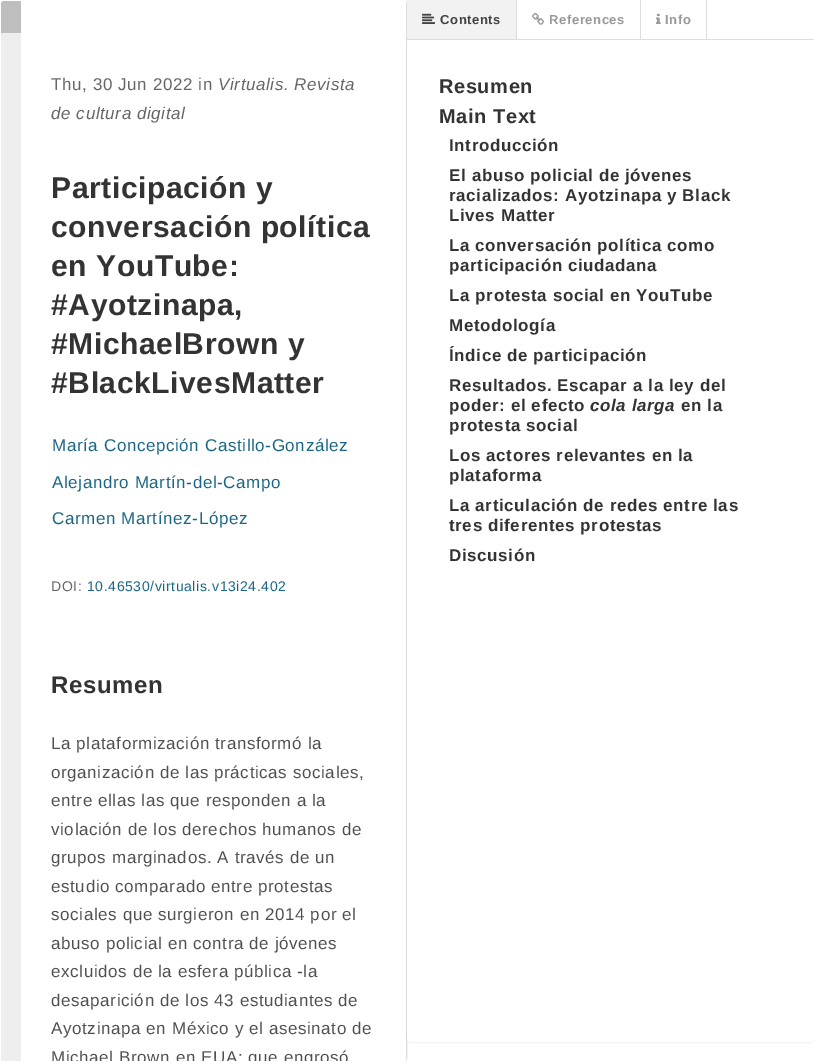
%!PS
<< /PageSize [814 1062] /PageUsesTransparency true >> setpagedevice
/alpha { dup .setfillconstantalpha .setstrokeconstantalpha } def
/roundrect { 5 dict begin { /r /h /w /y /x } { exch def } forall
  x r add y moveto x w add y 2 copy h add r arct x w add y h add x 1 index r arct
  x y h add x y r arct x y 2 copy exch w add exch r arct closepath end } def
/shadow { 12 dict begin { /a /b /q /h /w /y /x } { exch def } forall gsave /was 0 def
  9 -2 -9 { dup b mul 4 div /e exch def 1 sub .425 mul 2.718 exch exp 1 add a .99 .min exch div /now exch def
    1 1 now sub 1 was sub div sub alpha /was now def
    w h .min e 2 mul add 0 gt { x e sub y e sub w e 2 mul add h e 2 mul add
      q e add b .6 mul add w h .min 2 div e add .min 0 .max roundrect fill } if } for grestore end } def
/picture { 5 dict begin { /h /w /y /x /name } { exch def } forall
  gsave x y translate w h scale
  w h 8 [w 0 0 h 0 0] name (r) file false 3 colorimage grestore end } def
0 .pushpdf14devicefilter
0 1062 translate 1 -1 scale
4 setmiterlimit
1 setgray
0 0 814 1062 rectfill
0 setgray
0 1 407 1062 4 0.5 0.05 shadow
1 setgray
0 0 407 1062 4 roundrect fill
0.867 setgray
newpath 405.5 1.5 moveto 406.5 4 lineto 406.5 1058 lineto 405.5 1060.5 lineto stroke
1 setgray
1 1 405 1060 3 roundrect fill
0.933 setgray
newpath 4 1 moveto 21 1 lineto 21 1061 lineto 4 1061 lineto 2.5 1061 1 1059.5 1 1058 curveto 1 4 lineto 1 2.5 2.5 1 4 1 curveto closepath fill
0.2 alpha
0 setgray
newpath 4 1 moveto 21 1 lineto 21 33 lineto 1 33 lineto 1 4 lineto 1 2.5 2.5 1 4 1 curveto closepath fill
/LiberationSans-Regular [17 0 0 -17 0 0] selectfont
1 alpha
0.4 setgray
51 90 moveto 0.6 0 (Thu, 30 Jun 2022 in) ashow
/LiberationSans-Italic [17 0 0 -17 0 0] selectfont
218 90 moveto 0.6 0 (Virtualis. Revista) ashow
51 119 moveto 0.6 0 (de cultura digital) ashow
/LiberationSans-Bold [30 0 0 -30 0 0] selectfont
0.2 setgray
51 198 moveto 0.6 0 (Participación y) ashow
51 237 moveto 0.6 0 (conversación política) ashow
51 276 moveto 0.6 0 (en YouTube:) ashow
51 315 moveto 0.6 0 (#Ayotzinapa,) ashow
51 354 moveto 0.6 0 (#MichaelBrown y) ashow
51 393 moveto 0.6 0 (#BlackLivesMatter) ashow
/LiberationSans-Regular [17 0 0 -17 0 0] selectfont
0.106 0.4 0.522 setrgbcolor
52 451 moveto 0.6 0 (María Concepción Castillo-González) ashow
52 488 moveto 0.6 0 (Alejandro Martín-del-Campo) ashow
52 524 moveto 0.6 0 (Carmen Martínez-López) ashow
/LiberationSans-Regular [14 0 0 -14 0 0] selectfont
0.4 setgray
51 591 moveto 0.6 0 (DOI:) ashow
0.106 0.4 0.522 setrgbcolor
87 591 moveto 0.6 0 (10.46530/virtualis.v13i24.402) ashow
/LiberationSans-Bold [24 0 0 -24 0 0] selectfont
0.2 setgray
51 693 moveto 0.6 0 (Resumen) ashow
/LiberationSans-Regular [17 0 0 -17 0 0] selectfont
0.314 setgray
51 749 moveto 0.6 0 (La plataformización transformó la) ashow
51 778 moveto 0.6 0 (organización de las prácticas sociales,) ashow
51 806 moveto 0.6 0 (entre ellas las que responden a la) ashow
51 835 moveto 0.6 0 (violación de los derechos humanos de) ashow
51 863 moveto 0.6 0 (grupos marginados. A través de un) ashow
51 892 moveto 0.6 0 (estudio comparado entre protestas) ashow
51 920 moveto 0.6 0 (sociales que surgieron en 2014 por el) ashow
51 949 moveto 0.6 0 (abuso policial en contra de jóvenes) ashow
51 977 moveto 0.6 0 (excluidos de la esfera pública -la) ashow
51 1006 moveto 0.6 0 (desaparición de los 43 estudiantes de) ashow
51 1034 moveto 0.6 0 (Ayotzinapa en México y el asesinato de) ashow
gsave
1 1 405 1060 rectclip
51 1063 moveto 0.6 0 (Michael Brown en EUA; que engrosó) ashow
grestore
1 setgray
newpath 386 1 moveto 403 1 lineto 404.5 1 406 2.5 406 4 curveto 406 1058 lineto 406 1059.5 404.5 1061 403 1061 curveto 386 1061 lineto closepath fill
0 setgray
407 41 407 1002 4 0.5 0.05 shadow
0.867 setgray
407 39 407 1 rectfill
0.949 setgray
407 0 109 39 rectfill
gsave
407 0 407 39 rectclip
0.867 setgray
newpath 517 0 moveto 517 43 lineto 516 40 lineto 516 0 lineto closepath fill
grestore
(img1.rgb) 422 13 13 11 picture
/LiberationSans-Bold [13 0 0 -13 0 0] selectfont
0.267 setgray
440 24 moveto 0.6 0 (Contents) ashow
0.867 setgray
640 0 1 39 rectfill
(img2.rgb) 532 13 12 12 picture
0.6 setgray
549 24 moveto 0.6 0 (References) ashow
0.867 setgray
706 0 1 39 rectfill
(img3.rgb) 656 13 5 11 picture
0.6 setgray
665 24 moveto 0.6 0 (Info) ashow
1 setgray
407 40 407 1002 4 roundrect fill
/LiberationSans-Bold [20 0 0 -20 0 0] selectfont
0.2 setgray
439 93 moveto 0.6 0 (Resumen) ashow
439 123 moveto 0.6 0 (Main Text) ashow
/LiberationSans-Bold [17 0 0 -17 0 0] selectfont
449 151 moveto 0.6 0 (Introducción) ashow
449 181 moveto 0.6 0 (El abuso policial de jóvenes) ashow
449 201 moveto 0.6 0 (racializados: Ayotzinapa y Black) ashow
449 221 moveto 0.6 0 (Lives Matter) ashow
449 251 moveto 0.6 0 (La conversación política como) ashow
449 271 moveto 0.6 0 (participación ciudadana) ashow
449 301 moveto 0.6 0 (La protesta social en YouTube) ashow
449 331 moveto 0.6 0 (Metodología) ashow
449 361 moveto 0.6 0 (Índice de participación) ashow
449 391 moveto 0.6 0 (Resultados. Escapar a la ley del) ashow
449 411 moveto 0.6 0 (poder: el efecto) ashow
/LiberationSans-BoldItalic [17 0 0 -17 0 0] selectfont
590 411 moveto 0.6 0 (cola larga) ashow
/LiberationSans-Bold [17 0 0 -17 0 0] selectfont
681 411 moveto 0.6 0 (en la) ashow
449 431 moveto 0.6 0 (protesta social) ashow
449 461 moveto 0.6 0 (Los actores relevantes en la) ashow
449 481 moveto 0.6 0 (plataforma) ashow
449 511 moveto 0.6 0 (La articulación de redes entre las) ashow
449 531 moveto 0.6 0 (tres diferentes protestas) ashow
449 561 moveto 0.6 0 (Discusión) ashow
.poppdf14devicefilter showpage
